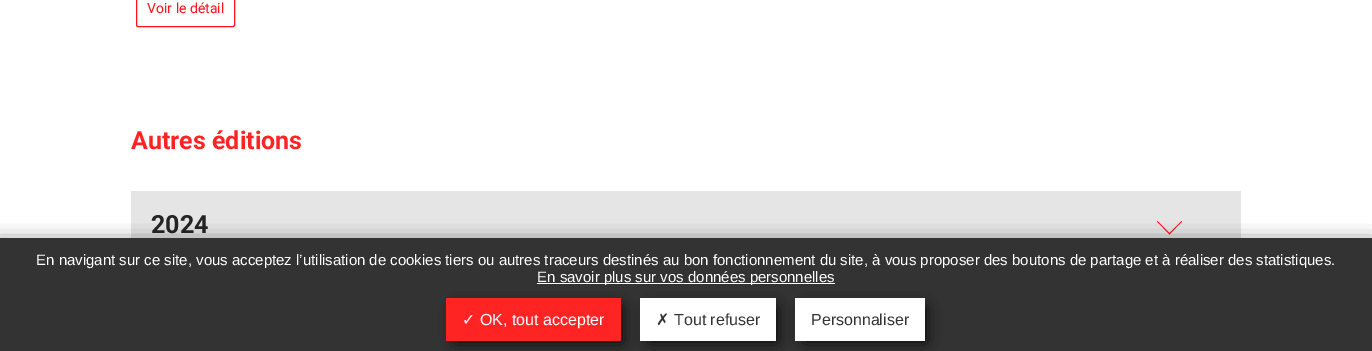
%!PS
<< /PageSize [1372 351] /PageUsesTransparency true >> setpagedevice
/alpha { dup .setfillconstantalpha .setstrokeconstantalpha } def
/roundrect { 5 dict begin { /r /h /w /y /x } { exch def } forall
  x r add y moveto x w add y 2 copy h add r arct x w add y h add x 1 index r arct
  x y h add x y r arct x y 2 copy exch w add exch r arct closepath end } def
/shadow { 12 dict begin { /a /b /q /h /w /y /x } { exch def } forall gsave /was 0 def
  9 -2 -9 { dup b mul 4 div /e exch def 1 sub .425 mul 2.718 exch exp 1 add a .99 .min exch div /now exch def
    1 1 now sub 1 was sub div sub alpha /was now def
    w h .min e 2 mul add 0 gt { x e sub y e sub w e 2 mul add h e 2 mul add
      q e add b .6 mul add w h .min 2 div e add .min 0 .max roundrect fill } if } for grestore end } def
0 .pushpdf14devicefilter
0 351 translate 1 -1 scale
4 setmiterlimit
1 setgray
0 0 1372 351 rectfill
0.996 0.075 0.102 setrgbcolor
136.5 -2.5 98 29 1.5 roundrect stroke
/Roboto-Regular [14 0 0 -14 0 0] selectfont
147 13 moveto (Voir le détail) show
/Roboto-Bold [25 0 0 -25 0 0] selectfont
1 0.141 0.141 setrgbcolor
131 149 moveto (Autres éditions) show
0.898 setgray
131 191 1110 47 rectfill
0.141 setgray
151 233 moveto (2024) show
0.996 0.075 0.102 setrgbcolor
newpath 1157 221.5 moveto 1157.5 221 lineto 1170 233.5 lineto 1169.5 234.5 lineto closepath fill
newpath 1181.5 221 moveto 1182 221.5 lineto 1169.5 234.5 lineto 1169 233.5 lineto closepath fill
0 setgray
-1 246 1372 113 0 10 1 shadow
0.2 setgray
0 238 1372 113 rectfill
/LiberationSans-Regular [15 0 0 -15 0 0] selectfont
1 setgray
36 265 moveto (En navigant sur ce site, vous acceptez l’utilisation de cookies tiers ou autres traceurs destinés au bon fonctionnement du site, à vous proposer des boutons de partage et à réaliser des statistiques.) show
537 283 298 1 rectfill
537 282 moveto (En savoir plus sur vos données personnelles) show
0 setgray
456 308 165 33 0 7.5 1 shadow
1 0.141 0.141 setrgbcolor
446 298 175 43 rectfill
/DejaVuSans-Regular [16 0 0 -16 0 0] selectfont
1 setgray
462 325 moveto (✓) show
/LiberationSans-Regular [16 0 0 -16 0 0] selectfont
480 325 moveto (OK, tout accepter) show
0 setgray
650 308 126 33 0 7.5 1 shadow
1 setgray
640 298 136 43 rectfill
/DejaVuSans-Regular [16 0 0 -16 0 0] selectfont
0.2 setgray
656 325 moveto (✗) show
/LiberationSans-Regular [16 0 0 -16 0 0] selectfont
674 325 moveto (Tout refuser) show
0 setgray
805 308 120 33 0 7.5 1 shadow
1 setgray
795 298 130 43 rectfill
0.2 setgray
811 325 moveto (Personnaliser) show
.poppdf14devicefilter showpage
